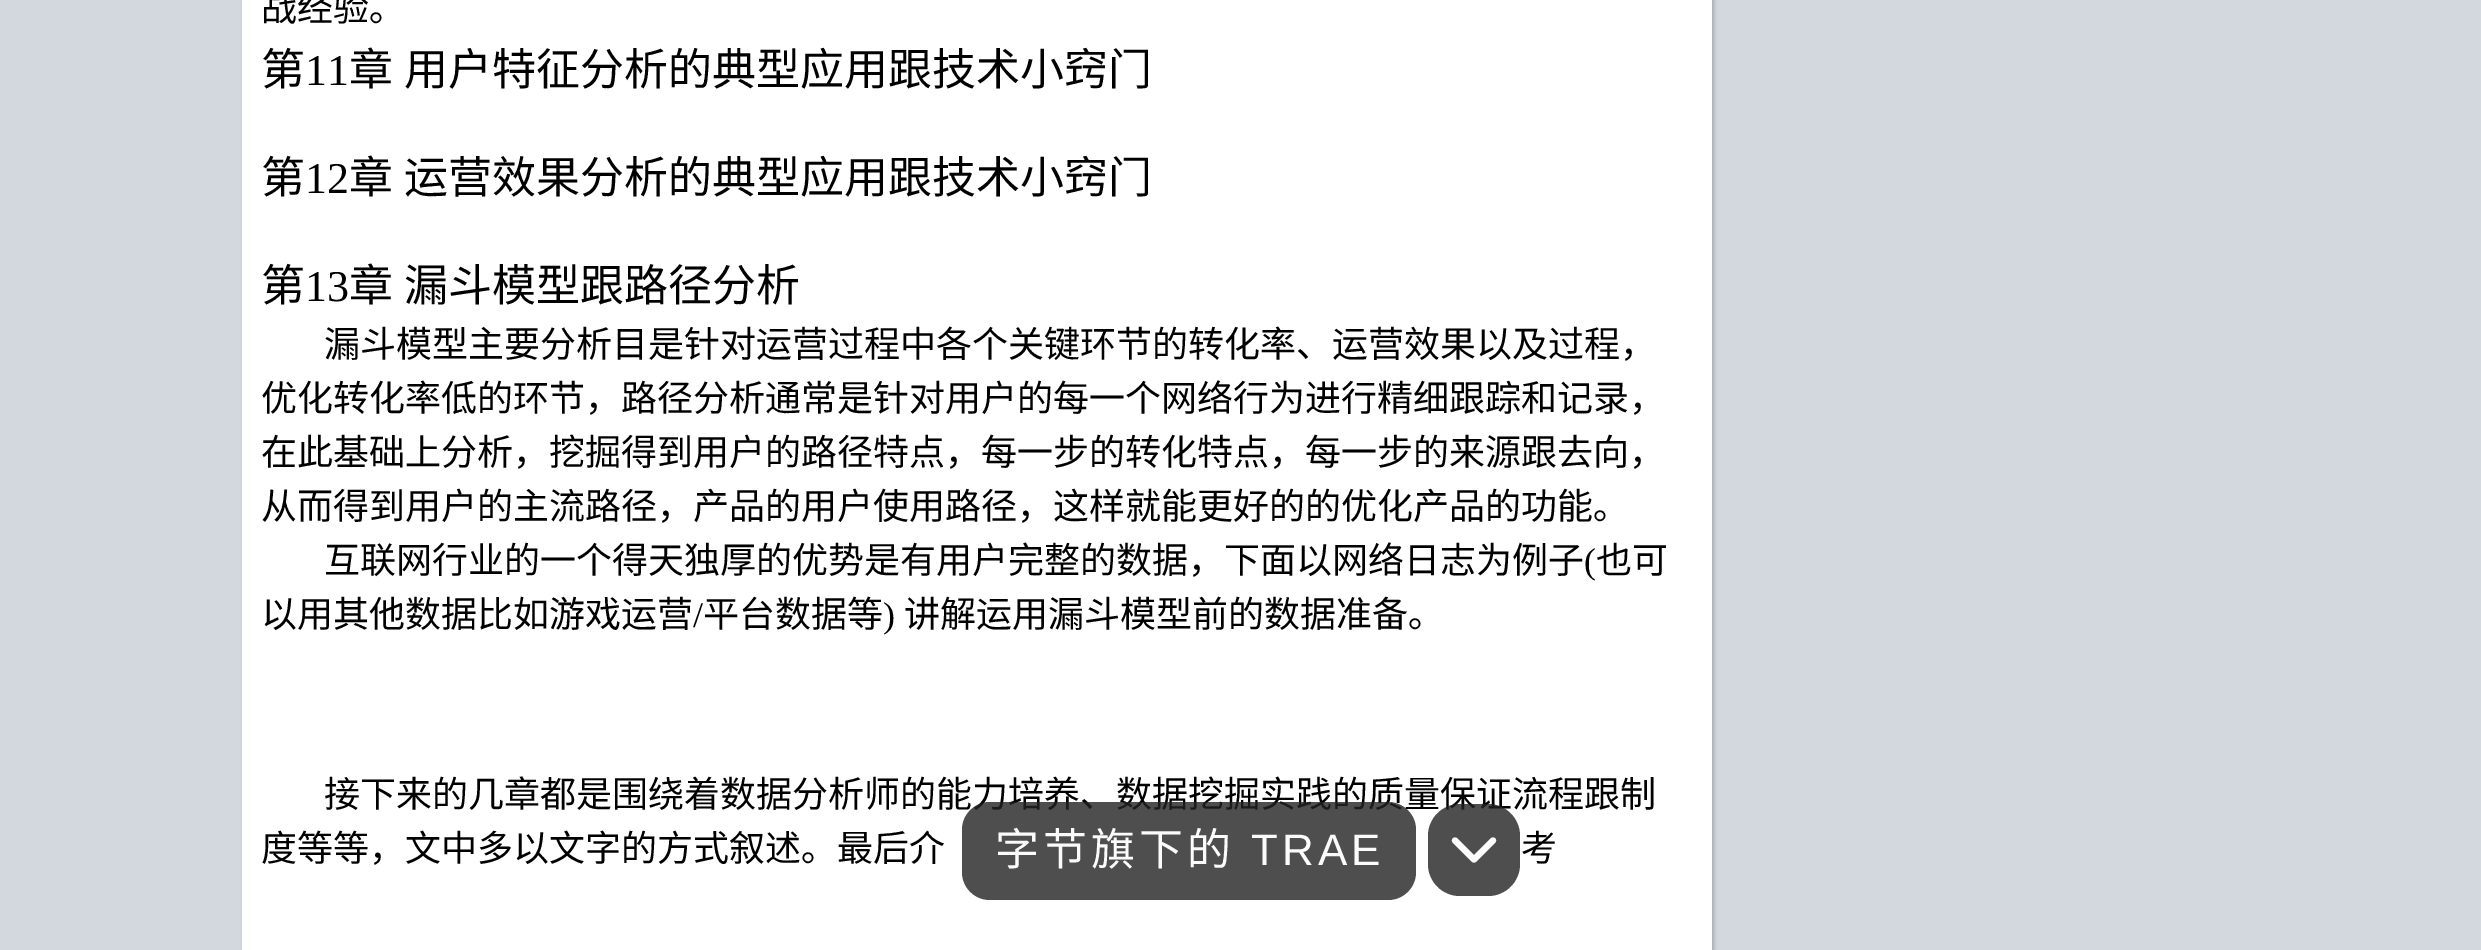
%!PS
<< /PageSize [2481 950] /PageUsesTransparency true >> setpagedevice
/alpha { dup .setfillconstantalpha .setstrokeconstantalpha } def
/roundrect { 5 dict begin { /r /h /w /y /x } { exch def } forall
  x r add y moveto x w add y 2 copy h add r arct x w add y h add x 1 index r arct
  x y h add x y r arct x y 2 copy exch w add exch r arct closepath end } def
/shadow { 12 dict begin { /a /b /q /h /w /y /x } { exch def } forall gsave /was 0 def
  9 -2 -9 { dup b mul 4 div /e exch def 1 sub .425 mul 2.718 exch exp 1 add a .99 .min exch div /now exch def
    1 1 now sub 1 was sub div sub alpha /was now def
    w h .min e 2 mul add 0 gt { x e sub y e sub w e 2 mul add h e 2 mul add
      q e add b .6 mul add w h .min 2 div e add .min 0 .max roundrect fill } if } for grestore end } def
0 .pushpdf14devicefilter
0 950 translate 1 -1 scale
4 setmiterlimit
0.824 0.847 0.871 setrgbcolor
0 0 2481 950 rectfill
0.655 0.659 0.678 setrgbcolor
244 -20 1470 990 14 2 1 shadow
1 setgray
242 0 1470 950 rectfill
/NotoSansCJKSC-Regular [36 0 0 -36 0 0] selectfont
0 setgray
261 21 moveto (战经验。) show
/NotoSansCJKSC-Regular [44 0 0 -44 0 0] selectfont
261 85 moveto (第) show
/LiberationSerif-Regular [44 0 0 -44 0 0] selectfont
305 85 moveto (11) show
/NotoSansCJKSC-Regular [44 0 0 -44 0 0] selectfont
349 85 moveto 1 0 32 (章 用户特征分析的典型应用跟技术小窍门) widthshow
261 193 moveto (第) show
/LiberationSerif-Regular [44 0 0 -44 0 0] selectfont
305 193 moveto (12) show
/NotoSansCJKSC-Regular [44 0 0 -44 0 0] selectfont
349 193 moveto 1 0 32 (章 运营效果分析的典型应用跟技术小窍门) widthshow
261 301 moveto (第) show
/LiberationSerif-Regular [44 0 0 -44 0 0] selectfont
305 301 moveto (13) show
/NotoSansCJKSC-Regular [44 0 0 -44 0 0] selectfont
349 301 moveto 1 0 32 (章 漏斗模型跟路径分析) widthshow
/NotoSansCJKSC-Regular [36 0 0 -36 0 0] selectfont
324 357 moveto (漏斗模型主要分析目是针对运营过程中各个关键环节的转化率、运营效果以及过程，) show
261 411 moveto (优化转化率低的环节，路径分析通常是针对用户的每一个网络行为进行精细跟踪和记录，) show
261 465 moveto (在此基础上分析，挖掘得到用户的路径特点，每一步的转化特点，每一步的来源跟去向，) show
261 519 moveto (从而得到用户的主流路径，产品的用户使用路径，这样就能更好的的优化产品的功能。) show
324 573 moveto (互联网行业的一个得天独厚的优势是有用户完整的数据，下面以网络日志为例子) show
/LiberationSerif-Regular [36 0 0 -36 0 0] selectfont
1584 573 moveto (\() show
/NotoSansCJKSC-Regular [36 0 0 -36 0 0] selectfont
1596 573 moveto (也可) show
261 627 moveto (以用其他数据比如游戏运营) show
/LiberationSerif-Regular [36 0 0 -36 0 0] selectfont
693 627 moveto (/) show
/NotoSansCJKSC-Regular [36 0 0 -36 0 0] selectfont
703 627 moveto (平台数据等) show
/LiberationSerif-Regular [36 0 0 -36 0 0] selectfont
883 627 moveto (\)) show
/NotoSansCJKSC-Regular [36 0 0 -36 0 0] selectfont
904 627 moveto (讲解运用漏斗模型前的数据准备。) show
324 807 moveto (接下来的几章都是围绕着数据分析师的能力培养、数据挖掘实践的质量保证流程跟制) show
261 861 moveto (度等等，文中多以文字的方式叙述。最后介) show
1521 861 moveto (考) show
0.8 alpha
0.133 setgray
962 802 454 98 28 roundrect fill
/NotoSansCJKSC-Regular [44 0 0 -44 0 0] selectfont
1 alpha
0.984 setgray
995 865 moveto 4 0 (字节旗下的) ashow
/LiberationSans-Regular [44 0 0 -44 0 0] selectfont
1251 865 moveto 4 0 (TRAE) ashow
0.8 alpha
0.133 setgray
1428 804 92 92 32 roundrect fill
0.98 alpha
1 setgray
6.2 setlinewidth
1 setlinecap
1 setlinejoin
newpath 1493 840.5 moveto 1474 859.5 lineto 1455 840.5 lineto stroke
.poppdf14devicefilter showpage
